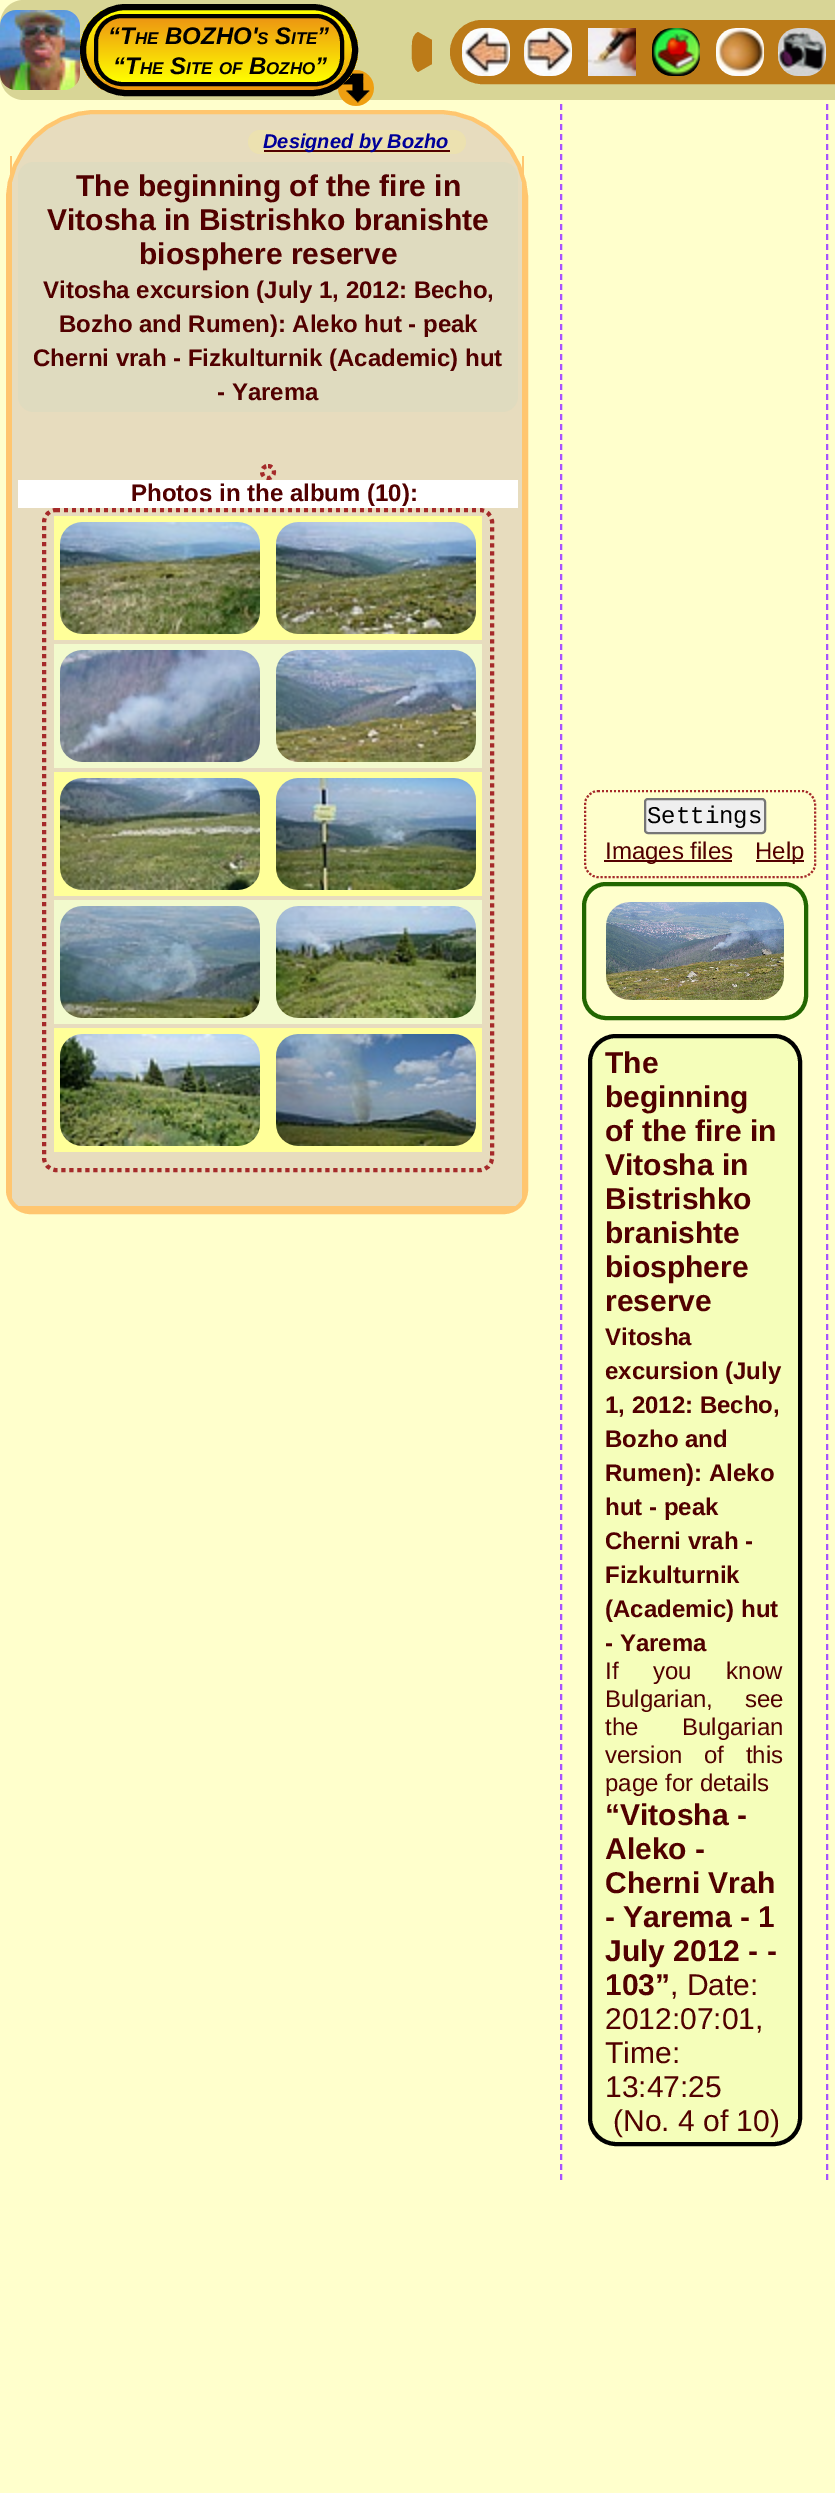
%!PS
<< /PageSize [835 2493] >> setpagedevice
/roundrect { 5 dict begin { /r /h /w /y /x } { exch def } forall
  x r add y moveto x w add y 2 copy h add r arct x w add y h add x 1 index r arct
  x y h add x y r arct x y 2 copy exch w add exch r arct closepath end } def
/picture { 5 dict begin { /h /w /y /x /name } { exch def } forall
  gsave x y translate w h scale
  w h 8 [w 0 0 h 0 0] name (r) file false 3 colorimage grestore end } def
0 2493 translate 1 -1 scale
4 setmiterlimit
1 1 0.8 setrgbcolor
0 0 835 2493 rectfill
0.659 0.318 1 setrgbcolor
2 setlinewidth
[6 4] 0 setdash
newpath 827 84 moveto 827 2180 lineto stroke
newpath 561 84 moveto 561 2180 lineto stroke
0.847 0.835 0.588 setrgbcolor
0 0 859 100 24 roundrect fill
(img1.rgb) 0 10 80 80 picture
(img2.rgb) 338 70 36 36 picture
gsave
80 4 278 92 46 roundrect clip newpath
gsave newpath 80 10 moveto 358 10 lineto 358 90 lineto 80 90 lineto closepath clip newpath
<< /ShadingType 2 /ColorSpace /DeviceRGB /Coords [219 10 219 90] /Extend [true true] /Function << /FunctionType 2 /Domain [0 1] /C0 [1 1 0] /C1 [0.929 0.588 0.071] /N 1 >> >> shfill grestore
grestore
0 setgray
6 setlinewidth
[] 0 setdash
83 7 272 86 43 roundrect stroke
gsave
94 14 250 72 28 roundrect clip newpath
gsave newpath 94 18 moveto 344 18 lineto 344 82 lineto 94 82 lineto closepath clip newpath
<< /ShadingType 2 /ColorSpace /DeviceRGB /Coords [219 18 219 82] /Extend [true true] /Function << /FunctionType 2 /Domain [0 1] /C0 [0.929 0.588 0.071] /C1 [1 1 0] /N 1 >> >> shfill grestore
grestore
4 setlinewidth
96 16 246 68 26 roundrect stroke
/LiberationSans-BoldItalic [24 0 0 -24 0 0] selectfont
108 44 moveto (“T) show
165 44 moveto (BOZHO') show
275 44 moveto (S) show
317 44 moveto (”) show
/LiberationSans-BoldItalic [17 0 0 -17 0 0] selectfont
135 44 moveto (HE) show
257 44 moveto (S) show
291 44 moveto (ITE) show
/LiberationSans-BoldItalic [24 0 0 -24 0 0] selectfont
113 74 moveto (“T) show
170 74 moveto (S) show
249 74 moveto (B) show
315 74 moveto (”) show
/LiberationSans-BoldItalic [17 0 0 -17 0 0] selectfont
140 74 moveto (HE) show
186 74 moveto (ITE) show
219 74 moveto (OF) show
266 74 moveto (OZHO) show
0.737 0.482 0.094 setrgbcolor
newpath 412 44 moveto 412 53 410 66 418 72 curveto 432 64 lineto 432 40 lineto 418 32 lineto 414 34 412 39 412 44 curveto closepath fill
454 24 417 56 28 roundrect gsave fill grestore
8 setlinewidth
stroke
(img3.rgb) 462 28 48 48 picture
(img4.rgb) 524 28 48 48 picture
(img5.rgb) 588 28 48 48 picture
(img6.rgb) 652 28 48 48 picture
(img7.rgb) 716 28 48 48 picture
(img8.rgb) 778 28 48 48 picture
0.906 0.863 0.745 setrgbcolor
newpath 96 112 moveto 438 112 lineto 486.5 112 526 151.5 526 200 curveto 526 1190 lineto 526 1202 516 1212 504 1212 curveto 30 1212 lineto 18 1212 8 1202 8 1190 curveto 8 200 lineto 8 151.5 47.5 112 96 112 curveto closepath gsave fill grestore
1 0.776 0.435 setrgbcolor
4 setlinewidth
stroke
522 156 2 1046 rectfill
18 1206 498 4 rectfill
10 156 2 1046 rectfill
0.925 0.882 0.69 setrgbcolor
248 130 218 24 12 roundrect fill
0.325 0 0 setrgbcolor
264 150 186 2 rectfill
/LiberationSans-BoldItalic [20 0 0 -20 0 0] selectfont
0 0 0.6 setrgbcolor
263 148 moveto (Designed by Bozho) show
0.875 0.859 0.749 setrgbcolor
18 162 500 250 16 roundrect fill
/LiberationSans-Bold [30 0 0 -30 0 0] selectfont
0.318 0 0 setrgbcolor
76 196 moveto (The beginning of the fire in) show
47 230 moveto (Vitosha in Bistrishko branishte) show
139 264 moveto (biosphere reservе) show
/LiberationSans-Bold [24 0 0 -24 0 0] selectfont
43 298 moveto (Vitosha excursion \(July 1, 2012: Becho,) show
59 332 moveto (Bozho and Rumen\): Aleko hut - peak) show
33 366 moveto (Cherni vrah - Fizkulturnik \(Academic\) hut) show
217 400 moveto (- Yarema) show
0.647 0.165 0.165 setrgbcolor
[4 4] 0 setdash
newpath 268 466 moveto 276 466 276 478 268 478 curveto 260 478 260 466 268 466 curveto closepath stroke
1 setgray
18 480 500 28 rectfill
0.318 0 0 setrgbcolor
131 501 moveto (Photos in the album \(10\):) show
0.647 0.165 0.165 setrgbcolor
newpath 56 510 moveto 480 510 lineto 486.5 510 492 515.5 492 522 curveto 492 1158 lineto 492 1164.5 486.5 1170 480 1170 curveto 56 1170 lineto 49.5 1170 44 1164.5 44 1158 curveto 44 522 lineto 44 515.5 49.5 510 56 510 curveto closepath stroke
1 1 0.6 setrgbcolor
54 516 428 124 rectfill
(img9.rgb) 60 522 200 112 picture
(img10.rgb) 276 522 200 112 picture
0.949 0.98 0.804 setrgbcolor
54 644 428 124 rectfill
(img11.rgb) 60 650 200 112 picture
(img12.rgb) 276 650 200 112 picture
1 1 0.6 setrgbcolor
54 772 428 124 rectfill
(img13.rgb) 60 778 200 112 picture
(img14.rgb) 276 778 200 112 picture
0.949 0.98 0.804 setrgbcolor
54 900 428 124 rectfill
(img15.rgb) 60 906 200 112 picture
(img16.rgb) 276 906 200 112 picture
1 1 0.6 setrgbcolor
54 1028 428 124 rectfill
(img17.rgb) 60 1034 200 112 picture
(img18.rgb) 276 1034 200 112 picture
0.647 0.165 0.165 setrgbcolor
2 setlinewidth
[2 2] 0 setdash
newpath 598 791 moveto 802 791 lineto 809 791 815 797 815 804 curveto 815 864 lineto 815 871 809 877 802 877 curveto 598 877 lineto 591 877 585 871 585 864 curveto 585 804 lineto 585 797 591 791 598 791 curveto closepath stroke
0.937 setgray
645 799 120 34 3 roundrect gsave fill grestore
0.463 setgray
[] 0 setdash
stroke
/LiberationMono-Regular [24 0 0 -24 0 0] selectfont
0 setgray
647 823 moveto (Settings) show
0.325 0 0 setrgbcolor
604 860 128 2 rectfill
/LiberationSans-Regular [24 0 0 -24 0 0] selectfont
0.318 0 0 setrgbcolor
605 859 moveto (Images files) show
0.325 0 0 setrgbcolor
756 860 48 2 rectfill
0.318 0 0 setrgbcolor
755 859 moveto (Help) show
0.133 0.4 0 setrgbcolor
4 setlinewidth
584 884 222 134 22 roundrect stroke
(img19.rgb) 606 902 178 98 picture
0.961 0.996 0.729 setrgbcolor
590 1036 210 1108 26 roundrect gsave fill grestore
0 setgray
stroke
/LiberationSans-Bold [30 0 0 -30 0 0] selectfont
0.318 0 0 setrgbcolor
605 1073 moveto (The) show
605 1107 moveto (beginning) show
605 1141 moveto (of the fire in) show
605 1175 moveto (Vitosha in) show
605 1209 moveto (Bistrishko) show
605 1243 moveto (branishte) show
605 1277 moveto (biosphere) show
605 1311 moveto (reservе) show
/LiberationSans-Bold [24 0 0 -24 0 0] selectfont
605 1345 moveto (Vitosha) show
605 1379 moveto (excursion \(July) show
605 1413 moveto (1, 2012: Becho,) show
605 1447 moveto (Bozho and) show
605 1481 moveto (Rumen\): Aleko) show
605 1515 moveto (hut - peak) show
605 1549 moveto (Cherni vrah -) show
605 1583 moveto (Fizkulturnik) show
605 1617 moveto (\(Academic\) hut) show
605 1651 moveto (- Yarema) show
/LiberationSans-Regular [24 0 0 -24 0 0] selectfont
605 1679 moveto 28 0 32 (If you know) widthshow
605 1707 moveto 25 0 32 (Bulgarian, see) widthshow
605 1735 moveto 37 0 32 (the Bulgarian) widthshow
605 1763 moveto 15 0 32 (version of this) widthshow
605 1791 moveto (page for details) show
/LiberationSans-Bold [30 0 0 -30 0 0] selectfont
605 1825 moveto (“Vitosha -) show
605 1859 moveto (Aleko -) show
605 1893 moveto (Cherni Vrah) show
605 1927 moveto (- Yarema - 1) show
605 1961 moveto (July 2012 - -) show
605 1995 moveto (103”) show
/LiberationSans-Regular [30 0 0 -30 0 0] selectfont
670 1995 moveto (, Date:) show
605 2029 moveto (2012:07:01,) show
605 2063 moveto (Time:) show
605 2097 moveto (13:47:25) show
613 2131 moveto (\(No. 4 of 10\)) show
showpage
